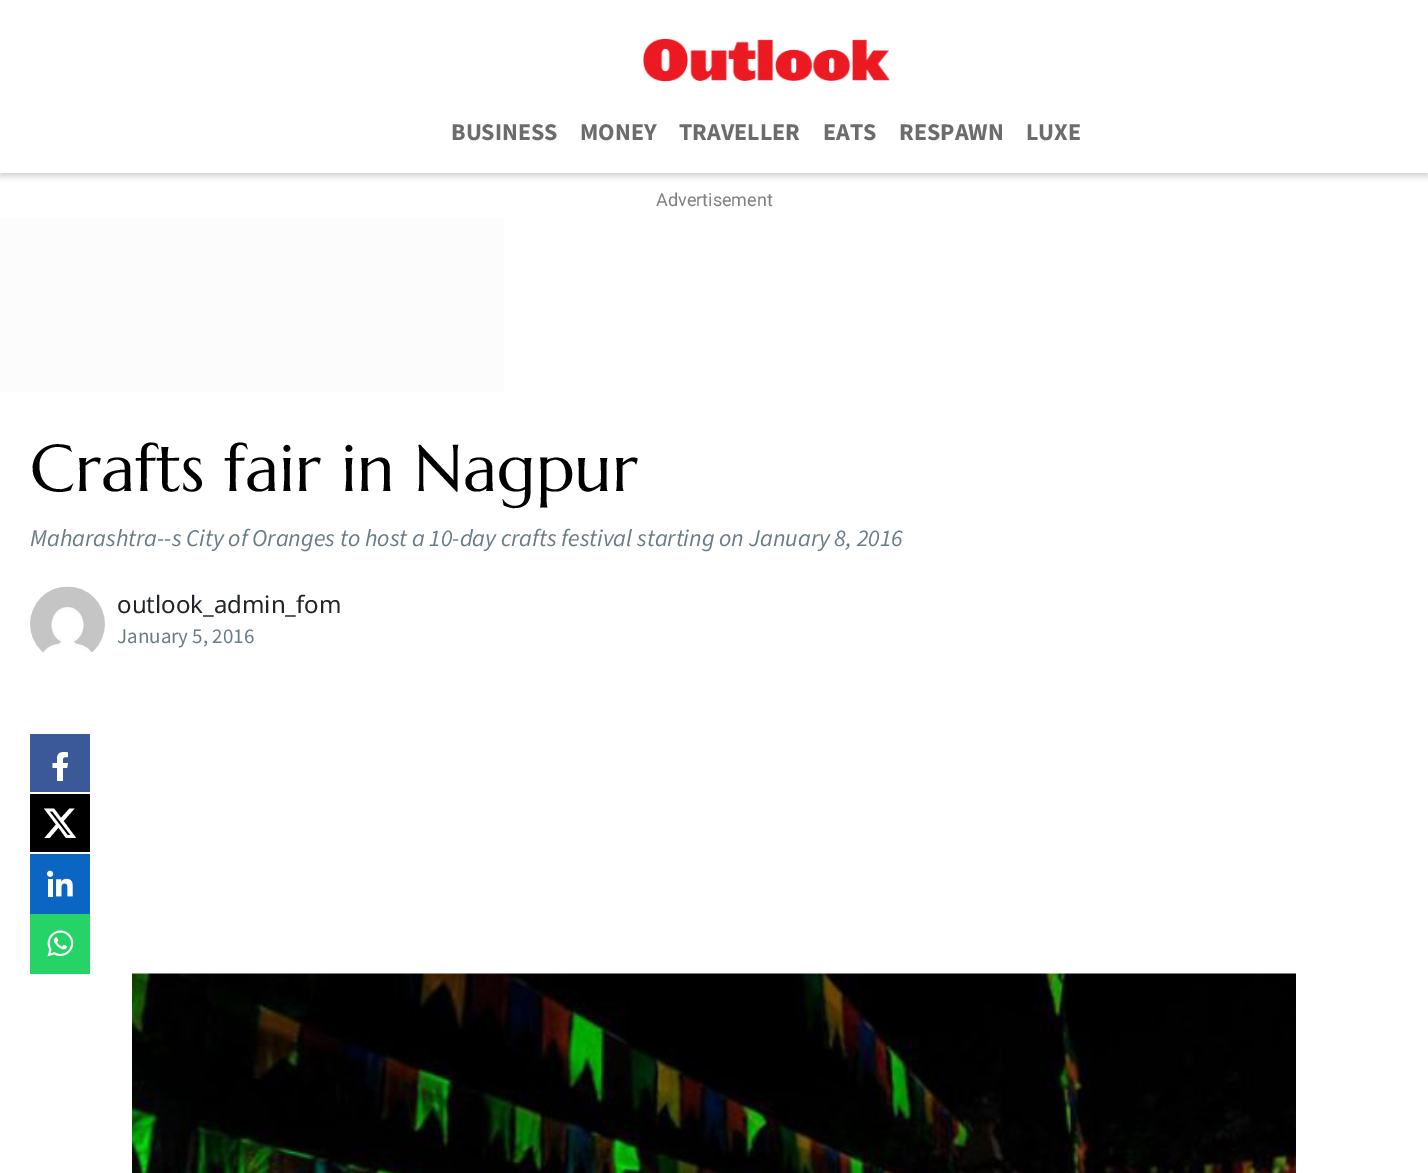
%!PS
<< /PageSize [1428 1173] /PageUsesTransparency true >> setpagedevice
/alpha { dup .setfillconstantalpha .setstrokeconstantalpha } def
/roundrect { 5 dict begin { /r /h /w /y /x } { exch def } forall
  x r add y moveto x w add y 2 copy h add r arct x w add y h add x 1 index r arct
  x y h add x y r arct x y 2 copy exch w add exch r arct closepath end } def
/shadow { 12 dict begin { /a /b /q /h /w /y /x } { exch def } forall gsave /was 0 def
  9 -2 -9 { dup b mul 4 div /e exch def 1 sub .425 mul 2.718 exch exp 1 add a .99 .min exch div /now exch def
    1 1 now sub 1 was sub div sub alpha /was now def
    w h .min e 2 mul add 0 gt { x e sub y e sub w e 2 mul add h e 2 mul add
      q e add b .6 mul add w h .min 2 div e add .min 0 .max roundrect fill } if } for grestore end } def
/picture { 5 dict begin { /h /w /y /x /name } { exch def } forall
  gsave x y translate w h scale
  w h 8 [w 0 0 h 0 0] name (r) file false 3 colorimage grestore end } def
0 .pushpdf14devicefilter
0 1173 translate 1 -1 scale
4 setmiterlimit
1 setgray
0 0 1428 1173 rectfill
0.067 setgray
0 3 1428 173 0 3 0.2 shadow
1 setgray
0 0 1428 173 rectfill
(img1.rgb) 643 38 247 44 picture
/SourceSans3-Bold [24 0 0 -24 0 0] selectfont
0.431 0.42 0.42 setrgbcolor
451 140 moveto (BUSINESS) show
580 140 moveto (MONEY) show
679 140 moveto (TRAVELLER) show
823 140 moveto (EATS) show
899 140 moveto (RESPAWN) show
1026 140 moveto (LUXE) show
/Roboto-Regular [18 0 0 -18 0 0] selectfont
0.502 setgray
656 206 moveto (Advertisement) show
0.988 setgray
0 218 504 174 rectfill
/Marcellus-Regular [66 0 0 -66 0 0] selectfont
0 setgray
30 491 moveto (Crafts fair in Nagpur) show
/SourceSans3-Italic [24 0 0 -24 0 0] selectfont
0.42 0.482 0.518 setrgbcolor
30 546 moveto (Maharashtra--s City of Oranges to host a 10-day crafts festival starting on January 8, 2016) show
(img2.rgb) 30 586 75 67 picture
/NotoSans-Regular [24 0 0 -24 0 0] selectfont
0.129 0.145 0.161 setrgbcolor
117 613 moveto (outlook_admin_fom) show
/SourceSans3-Regular [21 0 0 -21 0 0] selectfont
0.42 0.482 0.518 setrgbcolor
117 643 moveto (January 5, 2016) show
0.231 0.349 0.596 setrgbcolor
30 734 60 58 rectfill
1 setgray
newpath 67 768 moveto 68 763 lineto 63 763 lineto 63 757.5 62 757 68 757 curveto 68 752.5 lineto 63.5 751.5 58 751.5 57 757.5 curveto 57 763 lineto 52.5 763 lineto 52.5 768 lineto 57 768 lineto 57 781 lineto 63 781 lineto 63 768 lineto closepath fill
0 setgray
30 794 60 58 rectfill
1 setgray
newpath 69.5 808.5 moveto 74.5 808.5 lineto 63.5 821 lineto 76 838 lineto 66 838 lineto 58.5 827.5 lineto 49.5 838 lineto 44.5 838 lineto 56 824.5 lineto 44 808.5 lineto 54 808.5 lineto 61 818 lineto closepath 67.5 835 moveto 70.5 835 lineto 52.5 811.5 lineto 49.5 811.5 lineto closepath fill
(img3.rgb) 30 854 60 60 picture
(img4.rgb) 30 914 60 60 picture
(img5.rgb) 132 973 1164 200 picture
.poppdf14devicefilter showpage
